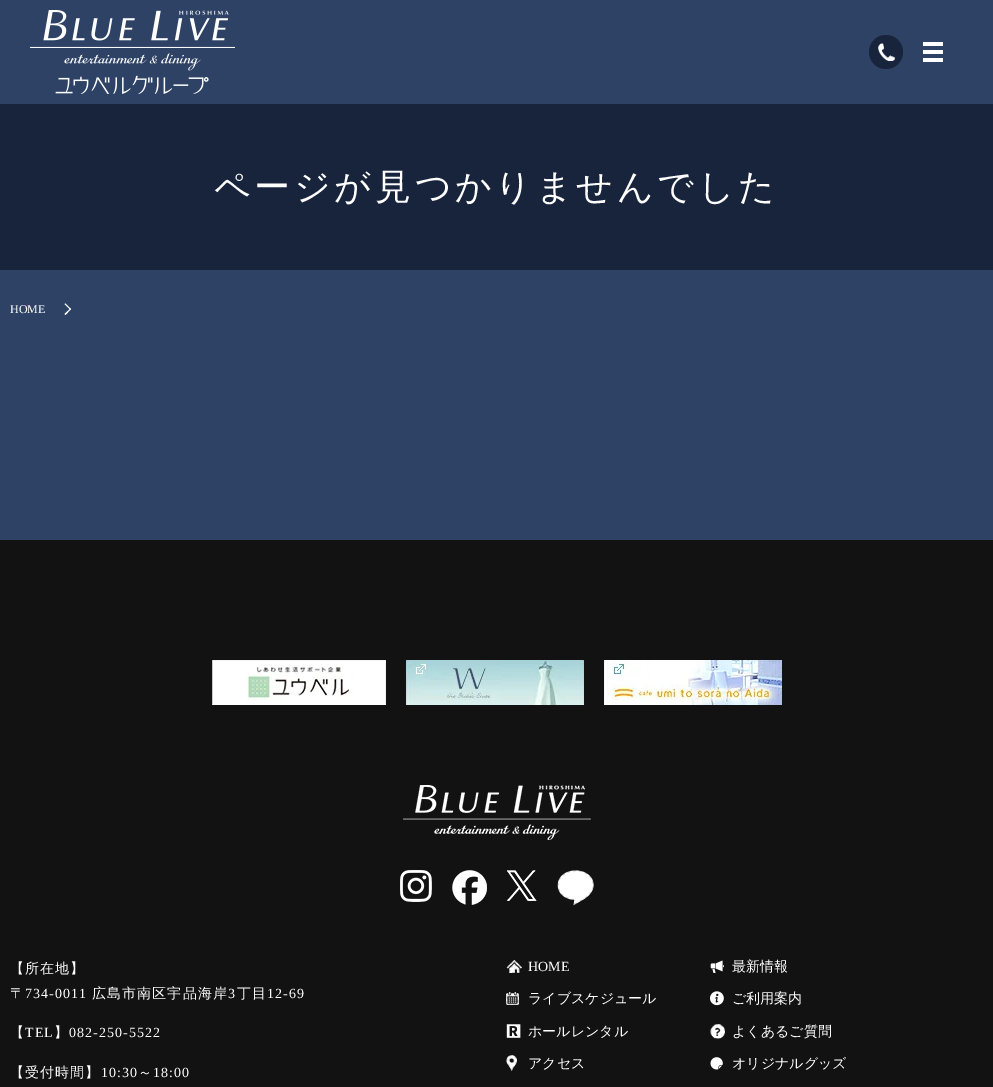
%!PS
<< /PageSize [993 1087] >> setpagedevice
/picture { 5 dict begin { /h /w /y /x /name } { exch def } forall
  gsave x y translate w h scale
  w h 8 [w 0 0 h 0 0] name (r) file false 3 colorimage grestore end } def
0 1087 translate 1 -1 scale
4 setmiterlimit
0.18 0.259 0.396 setrgbcolor
0 0 993 1087 rectfill
(img1.rgb) 30 10 205 84 picture
0.09 0.141 0.235 setrgbcolor
newpath 886 52 17 0 360 arc closepath fill
(img2.rgb) 878 43 17 18 picture
1 setgray
923 42 20 4 rectfill
923 50 20 4 rectfill
923 58 20 4 rectfill
0.09 0.141 0.235 setrgbcolor
0 104 993 166 rectfill
/WenQuanYiZenHei-Medium [36 0 0 -36 0 0] selectfont
1 setgray
214 199 moveto 3.6 0 (ページが見つかりませんでした) ashow
/LiberationSerif-Regular [12 0 0 -12 0 0] selectfont
10 313 moveto (HOME) show
newpath 65.5 303.5 moveto 71 309 lineto 70.5 310 lineto 64.5 304 lineto closepath fill
newpath 70.5 308.5 moveto 71 309 lineto 65.5 315 lineto 64.5 314 lineto closepath fill
0.071 setgray
0 540 993 547 rectfill
(img3.rgb) 212 660 174 45 picture
(img4.rgb) 406 660 178 45 picture
(img5.rgb) 604 660 178 45 picture
(img6.rgb) 403 785 188 55 picture
(img7.rgb) 400 870 32 32 picture
(img8.rgb) 452 870 35 35 picture
(img9.rgb) 507 870 30 31 picture
(img10.rgb) 557 870 37 36 picture
/WenQuanYiZenHei-Medium [14 0 0 -14 0 0] selectfont
1 setgray
10 973 moveto 1.1 0 (【所在地】) ashow
10 998 moveto 1.1 0 (〒) ashow
/LiberationSerif-Regular [14 0 0 -14 0 0] selectfont
25 998 moveto 1.1 0 (734-0011) ashow
/WenQuanYiZenHei-Medium [14 0 0 -14 0 0] selectfont
92 998 moveto 1.1 0 (広島市南区宇品海岸) ashow
/LiberationSerif-Regular [14 0 0 -14 0 0] selectfont
228 998 moveto 1.1 0 (3) ashow
/WenQuanYiZenHei-Medium [14 0 0 -14 0 0] selectfont
237 998 moveto 1.1 0 (丁目) ashow
/LiberationSerif-Regular [14 0 0 -14 0 0] selectfont
267 998 moveto 1.1 0 (12-69) ashow
/WenQuanYiZenHei-Medium [14 0 0 -14 0 0] selectfont
10 1037 moveto 1.1 0 (【) ashow
/LiberationSerif-Regular [14 0 0 -14 0 0] selectfont
25 1037 moveto 1.1 0 (TEL) ashow
/WenQuanYiZenHei-Medium [14 0 0 -14 0 0] selectfont
54 1037 moveto 1.1 0 (】) ashow
/LiberationSerif-Regular [14 0 0 -14 0 0] selectfont
69 1037 moveto 1.1 0 (082-250-5522) ashow
/WenQuanYiZenHei-Medium [14 0 0 -14 0 0] selectfont
10 1077 moveto 1.1 0 (【受付時間】) ashow
/LiberationSerif-Regular [14 0 0 -14 0 0] selectfont
101 1077 moveto 1.1 0 (10:30) ashow
/WenQuanYiZenHei-Medium [14 0 0 -14 0 0] selectfont
138 1077 moveto 1.1 0 (～) ashow
/LiberationSerif-Regular [14 0 0 -14 0 0] selectfont
153 1077 moveto 1.1 0 (18:00) ashow
(img11.rgb) 506 960 16 13 picture
528 971 moveto (HOME) show
(img12.rgb) 506 992 13 13 picture
/WenQuanYiZenHei-Medium [14 0 0 -14 0 0] selectfont
528 1003 moveto (ライブスケジュール) show
(img13.rgb) 506 1024 15 14 picture
528 1036 moveto (ホールレンタル) show
(img14.rgb) 506 1055 11 16 picture
528 1068 moveto (アクセス) show
(img15.rgb) 710 960 14 13 picture
732 971 moveto (最新情報) show
(img16.rgb) 710 991 14 15 picture
732 1003 moveto (ご利用案内) show
(img17.rgb) 710 1024 15 15 picture
732 1036 moveto (よくあるご質問) show
(img18.rgb) 710 1057 13 13 picture
732 1068 moveto (オリジナルグッズ) show
showpage
